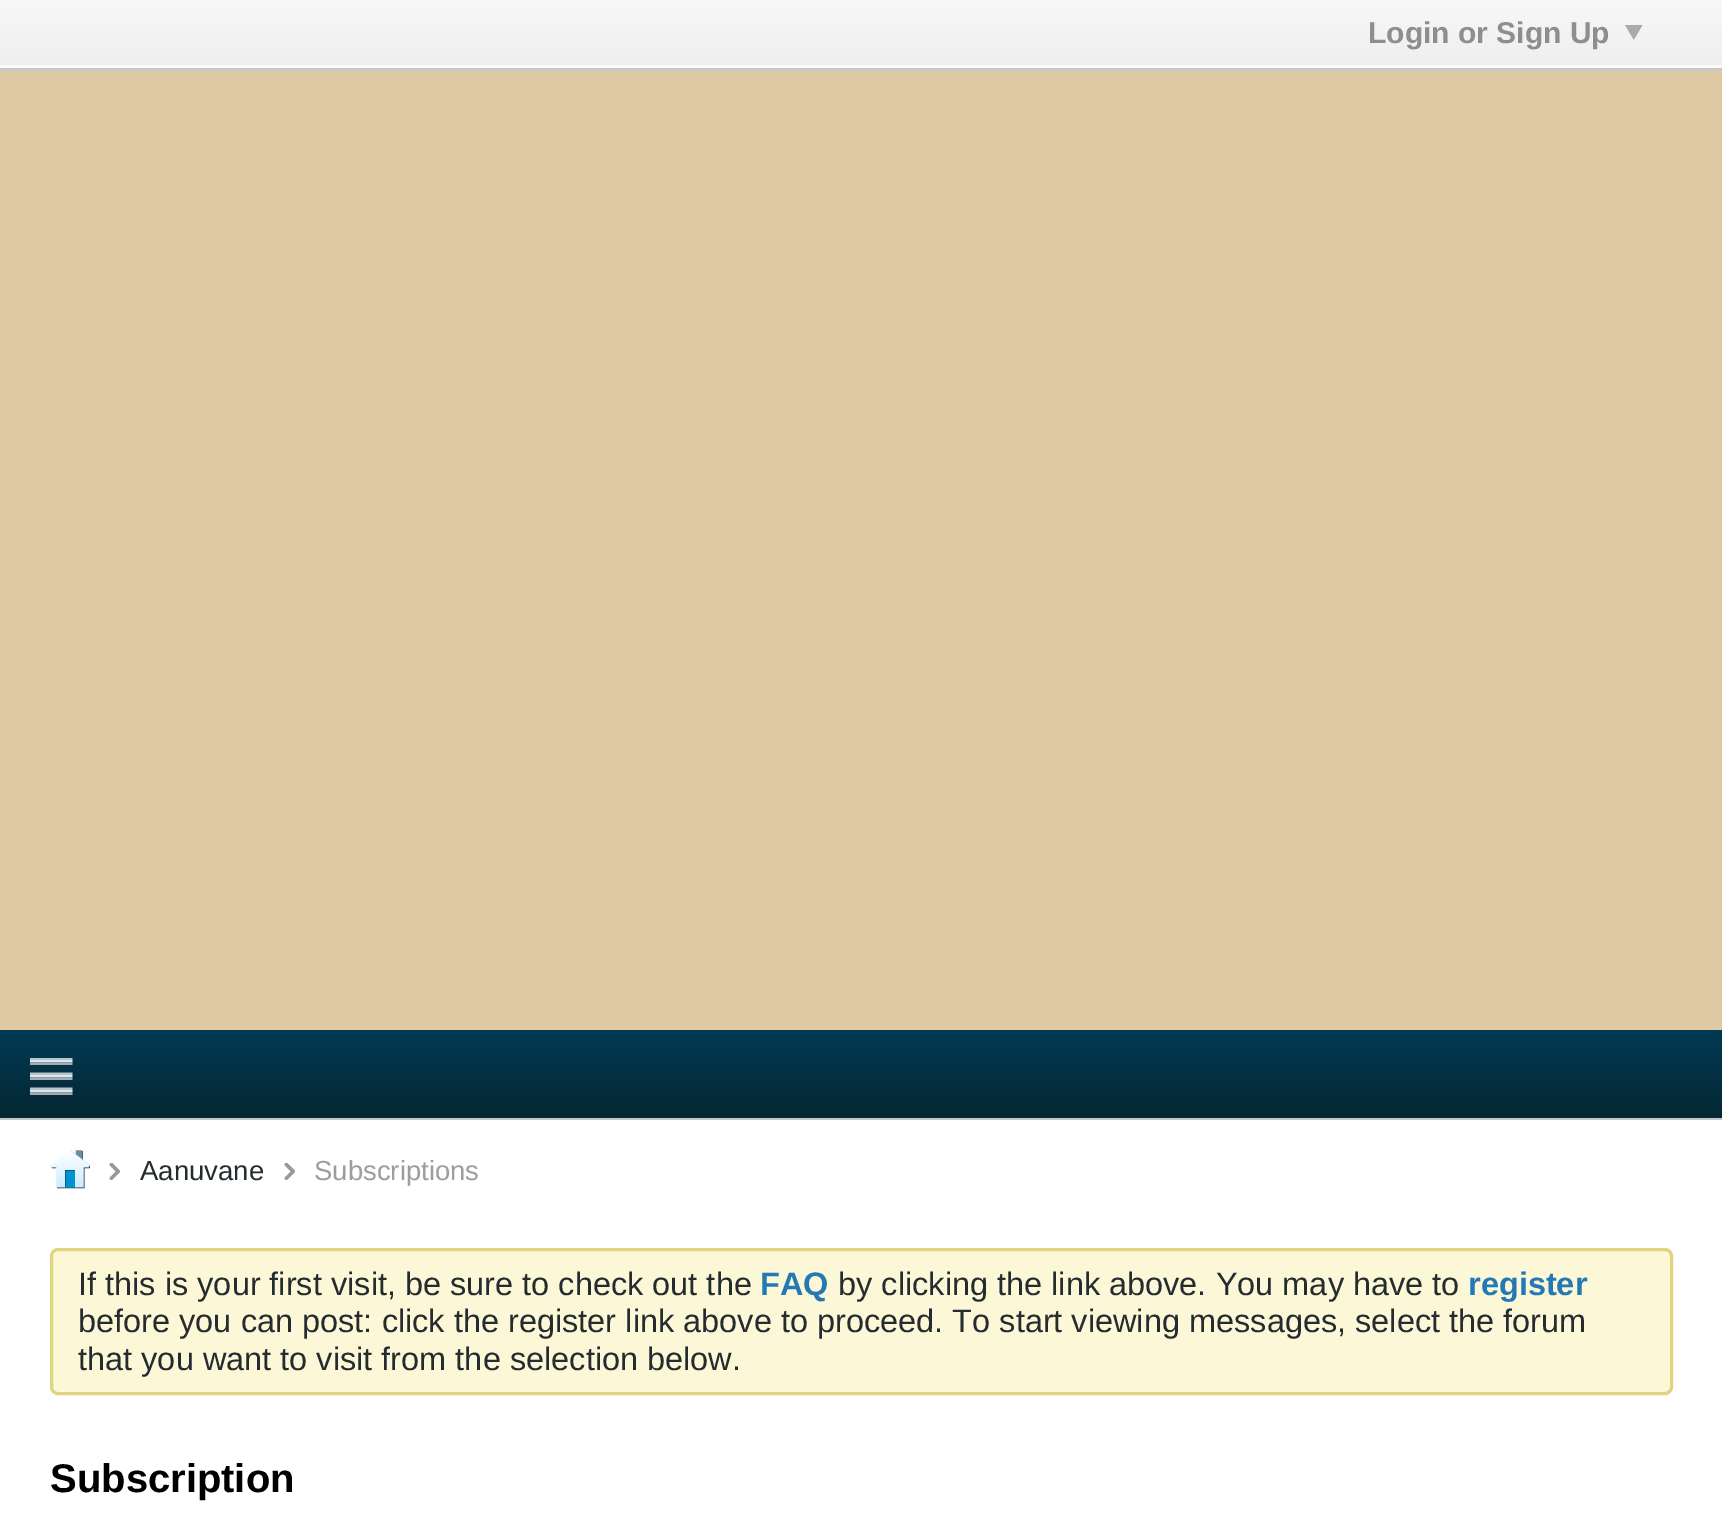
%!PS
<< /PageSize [1722 1537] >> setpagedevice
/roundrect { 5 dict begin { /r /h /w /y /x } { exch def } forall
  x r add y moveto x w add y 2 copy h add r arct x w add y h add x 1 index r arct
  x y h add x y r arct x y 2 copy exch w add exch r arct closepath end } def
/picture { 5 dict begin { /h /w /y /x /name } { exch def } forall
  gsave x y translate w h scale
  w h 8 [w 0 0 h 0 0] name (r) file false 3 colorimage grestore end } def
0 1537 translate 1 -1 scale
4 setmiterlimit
0.871 0.788 0.639 setrgbcolor
0 0 1722 1537 rectfill
gsave newpath 0 0 moveto 1722 0 lineto 1722 65 lineto 0 65 lineto closepath clip newpath
<< /ShadingType 2 /ColorSpace /DeviceRGB /Coords [861 0 861 70] /Extend [true true] /Function << /FunctionType 2 /Domain [0 1] /C0 [0.973 0.973 0.973] /C1 [0.937 0.929 0.933] /N 1 >> >> shfill grestore
/LiberationSans-Bold [30 0 0 -30 0 0] selectfont
0.557 setgray
1368 43 moveto (Login or Sign Up) show
(img1.rgb) 1625 25 18 15 picture
0.98 setgray
0 65 1722 3 rectfill
0.78 0.784 0.788 setrgbcolor
0 68 1722 3 rectfill
gsave newpath 0 1030 moveto 1722 1030 lineto 1722 1118 lineto 0 1118 lineto closepath clip newpath
<< /ShadingType 2 /ColorSpace /DeviceRGB /Coords [861 1030 861 1118] /Extend [true true] /Function << /FunctionType 2 /Domain [0 1] /C0 [0.004 0.227 0.329] /C1 [0.02 0.153 0.2] /N 1 >> >> shfill grestore
0.769 0.78 0.784 setrgbcolor
0 1118 1722 2 rectfill
(img2.rgb) 30 1058 43 37 picture
1 setgray
0 1120 1722 417 rectfill
(img3.rgb) 50 1150 40 39 picture
(img4.rgb) 109 1163 11 17 picture
/LiberationSans-Regular [27.5 0 0 -27.5 0 0] selectfont
0.145 0.173 0.184 setrgbcolor
140 1180 moveto (Aanuvane) show
(img4.rgb) 284 1163 11 17 picture
0.62 0.616 0.616 setrgbcolor
314 1180 moveto (Subscriptions) show
0.988 0.969 0.843 setrgbcolor
51.5 1249.5 1620 144 6.5 roundrect gsave fill grestore
0.882 0.831 0.494 setrgbcolor
3 setlinewidth
stroke
/LiberationSans-Regular [32.5 0 0 -32.5 0 0] selectfont
0.145 0.173 0.184 setrgbcolor
78 1295 moveto (If this is your first visit, be sure to check out the) show
/LiberationSans-Bold [32.5 0 0 -32.5 0 0] selectfont
0.137 0.475 0.71 setrgbcolor
760 1295 moveto (FAQ) show
/LiberationSans-Regular [32.5 0 0 -32.5 0 0] selectfont
0.145 0.173 0.184 setrgbcolor
838 1295 moveto (by clicking the link above. You may have to) show
/LiberationSans-Bold [32.5 0 0 -32.5 0 0] selectfont
0.137 0.475 0.71 setrgbcolor
1468 1295 moveto (register) show
/LiberationSans-Regular [32.5 0 0 -32.5 0 0] selectfont
0.145 0.173 0.184 setrgbcolor
78 1332 moveto (before you can post: click the register link above to proceed. To start viewing messages, select the forum) show
78 1370 moveto (that you want to visit from the selection below.) show
/LiberationSans-Bold [40 0 0 -40 0 0] selectfont
0 setgray
50 1492 moveto (Subscription) show
showpage
